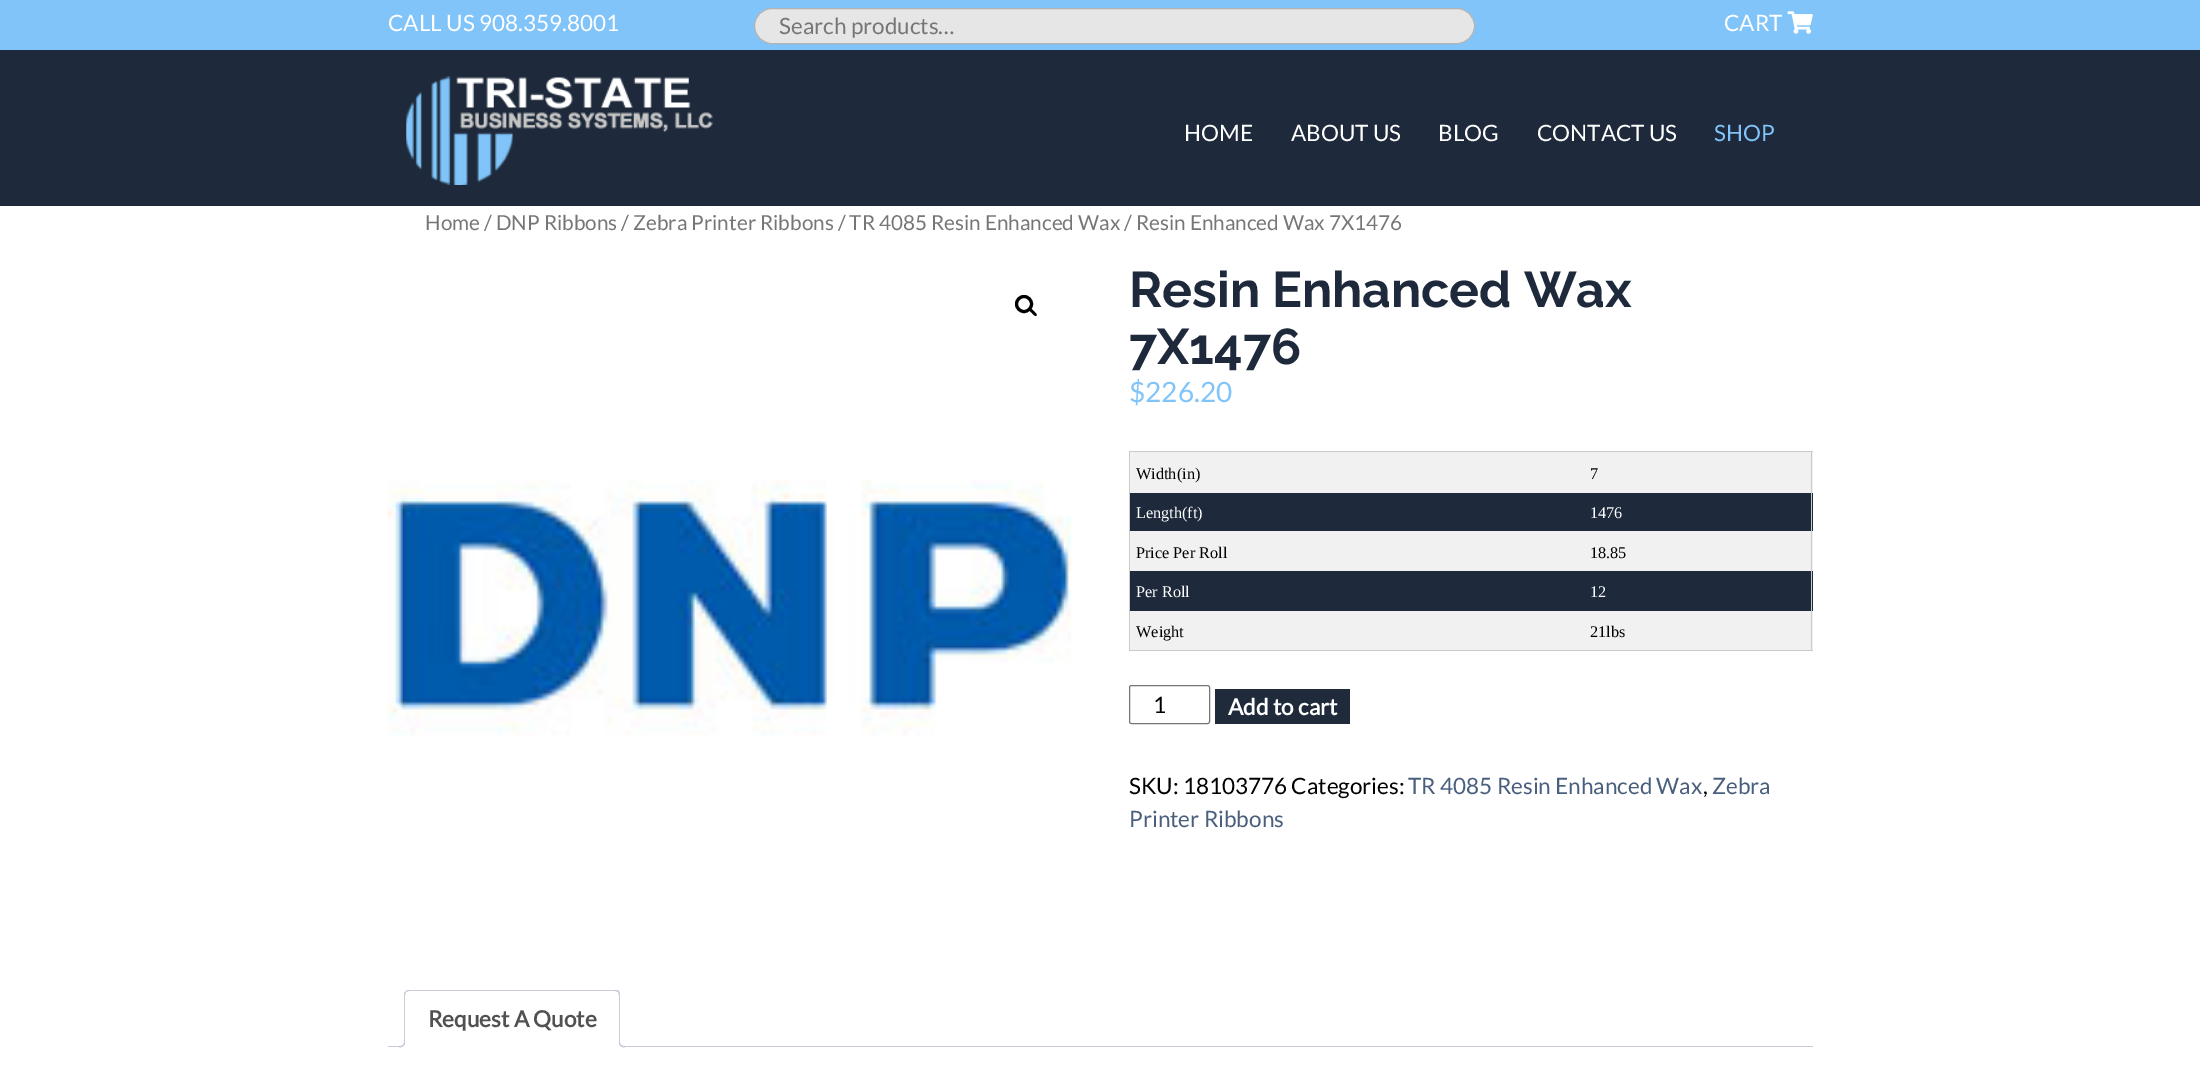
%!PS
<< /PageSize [2200 1091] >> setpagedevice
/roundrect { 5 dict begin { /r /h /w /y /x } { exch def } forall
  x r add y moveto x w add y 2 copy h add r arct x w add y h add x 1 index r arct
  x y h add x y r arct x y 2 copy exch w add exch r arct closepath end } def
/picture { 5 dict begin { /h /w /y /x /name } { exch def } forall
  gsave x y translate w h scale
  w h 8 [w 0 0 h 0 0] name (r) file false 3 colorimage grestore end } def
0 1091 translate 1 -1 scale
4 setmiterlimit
1 setgray
0 0 2200 1091 rectfill
0.502 0.769 0.976 setrgbcolor
0 0 2200 50 rectfill
/Lato-Regular [22.5 0 0 -22.5 0 0] selectfont
1 setgray
388 31 moveto (CALL US 908.359.8001) show
0.902 setgray
754.5 8.5 720 35 17.5 roundrect gsave fill grestore
0.702 setgray
stroke
0.463 setgray
779 34 moveto (Search products…) show
1 setgray
1724 31 moveto (CART) show
(img1.rgb) 1787 11 26 23 picture
0.118 0.165 0.231 setrgbcolor
0 50 2200 156 rectfill
(img2.rgb) 406 76 307 109 picture
1 setgray
1184 141 moveto (HOME) show
1291 141 moveto (ABOUT US) show
1438 141 moveto (BLOG) show
1537 141 moveto (CONTACT US) show
0.502 0.769 0.976 setrgbcolor
1714 141 moveto (SHOP) show
/Lato-Regular [20.7 0 0 -20.7 0 0] selectfont
0.463 setgray
425 230 moveto (Home / DNP Ribbons / Zebra Printer Ribbons / TR 4085 Resin Enhanced Wax / Resin Enhanced Wax 7X1476) show
0 setgray
3 setlinewidth
newpath 1024 304 7.5 0 360 arc closepath stroke
newpath 1029 308.5 moveto 1030.5 307 1033 310.5 1033.5 311 curveto 1034.5 312 1037.5 314 1036.5 315.5 curveto 1035 317 1032.5 313.5 1032 313 curveto 1031 312 1028 310 1029 308.5 curveto closepath fill
(img3.rgb) 387 479 685 257 picture
/Raleway-Bold [50 0 0 -50 0 0] selectfont
0.118 0.165 0.231 setrgbcolor
1129 307 moveto (Resin Enhanced Wax) show
1129 364 moveto (7X1476) show
/Lato-Regular [28 0 0 -28 0 0] selectfont
0.502 0.769 0.976 setrgbcolor
1129 402 moveto ($226.20) show
0.792 setgray
1129 451 684 1 rectfill
0.945 setgray
1130 452 683 41 rectfill
0.118 0.165 0.231 setrgbcolor
1130 493 683 38 rectfill
0.945 setgray
1130 531 683 40 rectfill
0.118 0.165 0.231 setrgbcolor
1130 571 683 40 rectfill
0.945 setgray
1130 611 683 39 rectfill
0.792 setgray
1811 451 1 200 rectfill
1129 650 684 1 rectfill
1129 451 1 200 rectfill
/LiberationSerif-Regular [16.25 0 0 -16.25 0 0] selectfont
0 setgray
1136 479 moveto (Width\(in\)) show
1590 479 moveto (7) show
1 setgray
1136 518 moveto (Length\(ft\)) show
1590 518 moveto (1476) show
0 setgray
1136 558 moveto (Price Per Roll) show
1590 558 moveto (18.85) show
1 setgray
1136 597 moveto (Per Roll) show
1590 597 moveto (12) show
0 setgray
1136 637 moveto (Weight) show
1590 637 moveto (21lbs) show
0.463 setgray
1 setlinewidth
1129.5 685.5 80 38 2 roundrect stroke
/Lato-Regular [22.5 0 0 -22.5 0 0] selectfont
0 setgray
1153 713 moveto (1) show
0.122 0.165 0.231 setrgbcolor
1215 689 135 35 rectfill
/Lato-Bold [22.5 0 0 -22.5 0 0] selectfont
1 setgray
1228 715 moveto (Add to cart) show
/Lato-Regular [22.5 0 0 -22.5 0 0] selectfont
0 setgray
1129 794 moveto (SKU: 18103776 Categories:) show
0.286 0.373 0.49 setrgbcolor
1408 794 moveto (TR 4085 Resin Enhanced Wax) show
0 setgray
1703 794 moveto (,) show
0.286 0.373 0.49 setrgbcolor
1712 794 moveto (Zebra) show
1129 827 moveto (Printer Ribbons) show
0.812 0.784 0.847 setrgbcolor
388 1046 1425 1 rectfill
1 setgray
newpath 409 990 moveto 615 990 lineto 618 990 620 992 620 995 curveto 620 1048 lineto 404 1048 lineto 404 995 lineto 404 992 406 990 409 990 curveto closepath fill
0.812 0.784 0.847 setrgbcolor
newpath 409 990 moveto 407 990 406 991 405 992 curveto 406 992 lineto 409 991 lineto 615 991 lineto 618 992 lineto 619 991 lineto 618 990 616 990 615 990 curveto closepath fill
newpath 620 1048 moveto 620 995 lineto 620 994 620 992 619 991 curveto 618 992 lineto 619 995 lineto 619 1046 lineto 618 1046 lineto closepath fill
1 setgray
newpath 620 1048 moveto 404 1048 lineto 405 1046 lineto 618 1046 lineto closepath fill
0.812 0.784 0.847 setrgbcolor
newpath 405 992 moveto 404 992 404 994 404 995 curveto 404 1047 lineto 405 1046 lineto 405 995 lineto 406 992 lineto closepath fill
/Lato-Bold [22.5 0 0 -22.5 0 0] selectfont
0.318 setgray
428 1027 moveto (Request A Quote) show
gsave
388 990 1425 58 rectclip
1 setgray
newpath 401 1047.5 moveto 401 1050 lineto 405.5 1050 408 1049 408 1044 curveto 405 1044 lineto 404 1045.5 403 1047 401 1047.5 curveto closepath fill
grestore
0.812 0.784 0.847 setrgbcolor
newpath 399 1041 moveto 405 1041 lineto 405 1045.5 403 1047.5 399 1047.5 curveto closepath 399 1041 moveto 404 1041 lineto 404 1045 402.5 1046 399 1046 curveto closepath eofill
gsave
388 990 1425 58 rectclip
1 setgray
newpath 616 1044 moveto 616 1049 618.5 1050 623 1050 curveto 623 1047.5 lineto 621 1047 619.5 1046 619 1044 curveto closepath fill
grestore
newpath 619 1041 moveto 625 1041 lineto 625 1047.5 lineto 622 1047.5 619 1046 619 1042.5 curveto closepath 620 1041 moveto 625 1041 lineto 625 1046 lineto 622.5 1046 620 1045.5 620 1042.5 curveto closepath eofill
showpage
